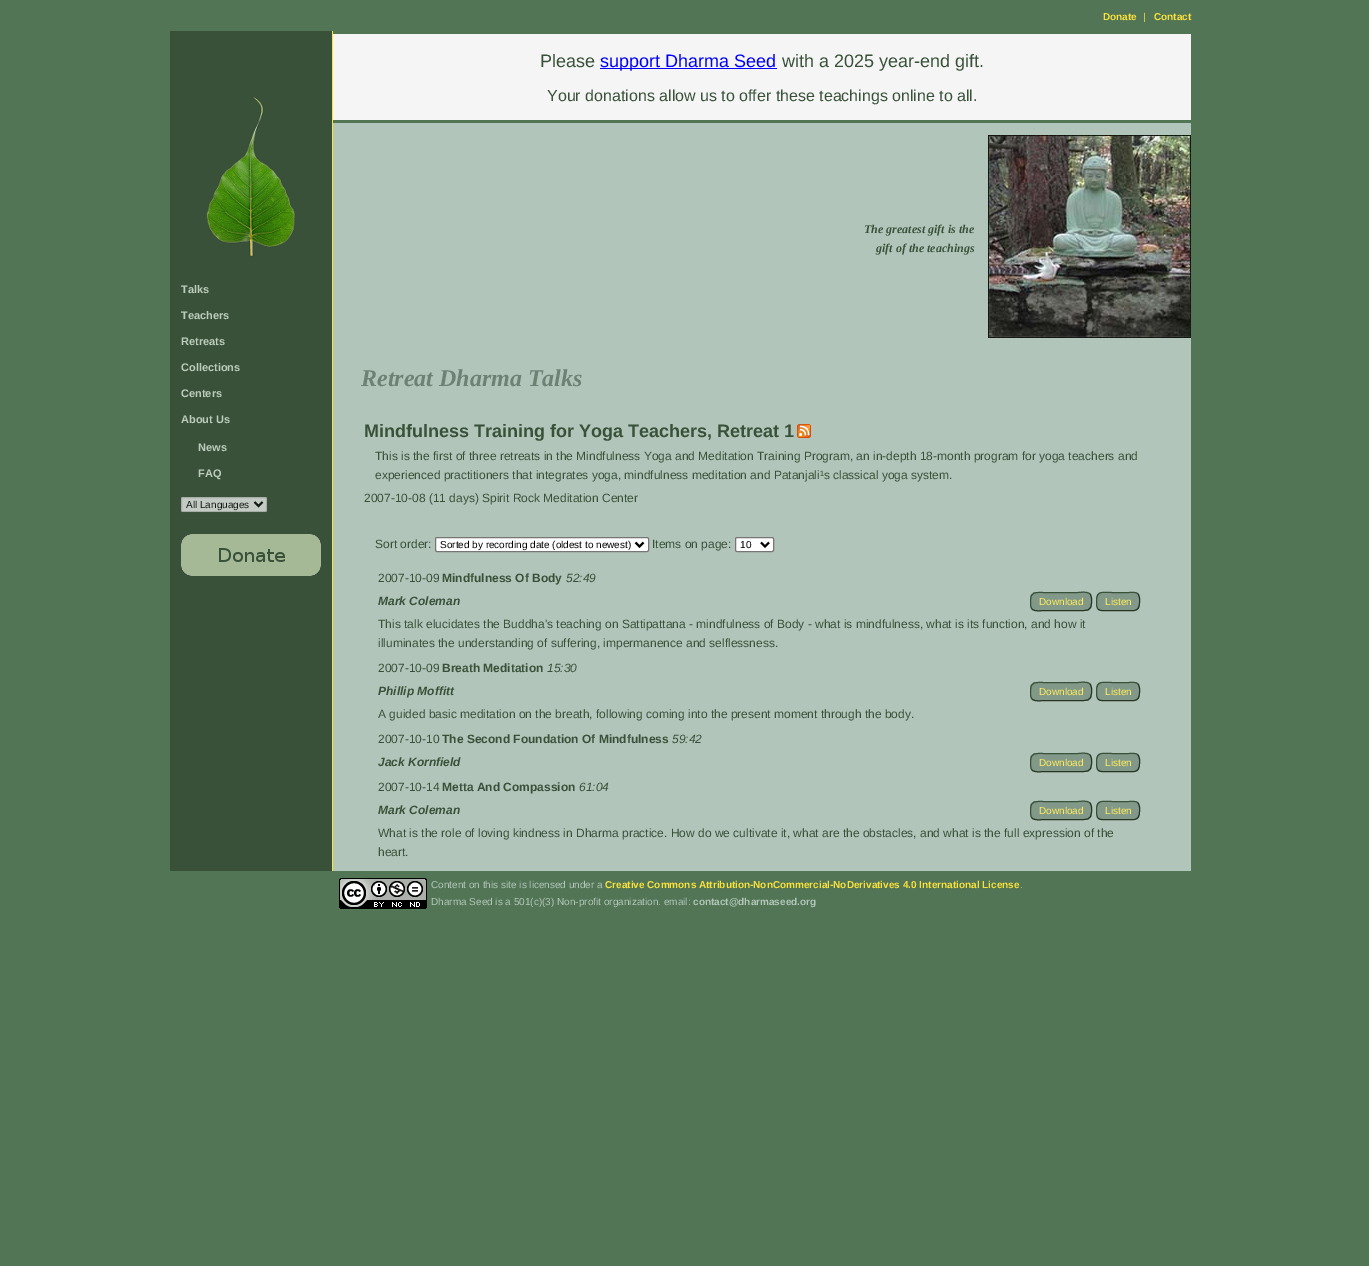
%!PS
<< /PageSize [1369 1266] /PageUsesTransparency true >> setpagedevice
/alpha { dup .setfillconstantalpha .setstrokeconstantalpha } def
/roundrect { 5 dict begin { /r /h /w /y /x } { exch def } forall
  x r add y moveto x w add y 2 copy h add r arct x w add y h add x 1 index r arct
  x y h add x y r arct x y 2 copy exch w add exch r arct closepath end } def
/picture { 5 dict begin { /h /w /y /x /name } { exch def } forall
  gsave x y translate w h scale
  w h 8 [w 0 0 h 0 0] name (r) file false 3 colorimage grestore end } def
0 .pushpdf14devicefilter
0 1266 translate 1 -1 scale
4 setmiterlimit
0.322 0.459 0.333 setrgbcolor
0 0 1369 1266 rectfill
/LiberationSans-Bold [10 0 0 -10 0 0] selectfont
0.984 0.886 0.231 setrgbcolor
1103 20 moveto (Donate) show
/LiberationSans-Regular [10 0 0 -10 0 0] selectfont
1143 20 moveto (|) show
/LiberationSans-Bold [10 0 0 -10 0 0] selectfont
1154 20 moveto (Contact) show
0.224 0.318 0.224 setrgbcolor
170 31 162 840 rectfill
(img1.rgb) 206 97 89 160 picture
/LiberationSans-Bold [11 0 0 -11 0 0] selectfont
0.733 0.8 0.733 setrgbcolor
181 293 moveto (Talks) show
181 319 moveto (Teachers) show
181 345 moveto (Retreats) show
181 371 moveto (Collections) show
181 397 moveto (Centers) show
181 423 moveto (About Us) show
198 451 moveto (News) show
198 477 moveto (FAQ) show
0.769 0.796 0.769 setrgbcolor
181 497 86 15 2 roundrect fill
0.3 alpha
0.392 0.42 0.392 setrgbcolor
181.5 497.5 85 14 1.5 roundrect stroke
1 alpha
0.067 0.094 0.067 setrgbcolor
2 setlinewidth
newpath 254.5 502 moveto 258.5 506 lineto 262.5 502 lineto stroke
/LiberationSans-Regular [10 0 0 -10 0 0] selectfont
186 508 moveto (All Languages) show
(img2.rgb) 181 534 140 42 picture
0.984 0.894 0.212 setrgbcolor
332 31 1 840 rectfill
0.698 0.773 0.729 setrgbcolor
333 123 858 748 rectfill
0.961 setgray
333 34 858 86 rectfill
/LiberationSans-Regular [18 0 0 -18 0 0] selectfont
0.224 0.318 0.224 setrgbcolor
540 67 moveto (Please) show
0 0 1 setrgbcolor
600 68 177 1 rectfill
600 67 moveto (support Dharma Seed) show
0.224 0.318 0.224 setrgbcolor
782 67 moveto (with a 2025 year-end gift.) show
/LiberationSans-Regular [16 0 0 -16 0 0] selectfont
547 101 moveto (Your donations allow us to offer these teachings online to all.) show
/LiberationSerif-BoldItalic [12 0 0 -12 0 0] selectfont
864 233 moveto (The greatest gift is the) show
876 252 moveto (gift of the teachings) show
(img3.rgb) 988 135 203 203 picture
/LiberationSerif-BoldItalic [24 0 0 -24 0 0] selectfont
0.427 0.51 0.459 setrgbcolor
361 386 moveto (Retreat Dharma Talks) show
/LiberationSans-Bold [18 0 0 -18 0 0] selectfont
0.224 0.318 0.224 setrgbcolor
364 437 moveto (Mindfulness Training for Yoga Teachers, Retreat 1) show
(img4.rgb) 797 424 14 14 picture
/LiberationSans-Regular [12 0 0 -12 0 0] selectfont
375 460 moveto (This is the first of three retreats in the Mindfulness Yoga and Meditation Training Program, an in-depth 18-month program for yoga teachers and) show
375 479 moveto (experienced practitioners that integrates yoga, mindfulness meditation and Patanjali¹s classical yoga system.) show
364 502 moveto (2007-10-08 \(11 days\) Spirit Rock Meditation Center) show
375 548 moveto (Sort order:) show
1 setgray
435.5 537.5 213 14 1.5 roundrect gsave fill grestore
0.463 setgray
1 setlinewidth
stroke
0 setgray
2 setlinewidth
newpath 635.5 542.5 moveto 639.5 546.5 lineto 643.5 542.5 lineto stroke
/LiberationSans-Regular [10 0 0 -10 0 0] selectfont
440 548 moveto (Sorted by recording date \(oldest to newest\)) show
/LiberationSans-Regular [12 0 0 -12 0 0] selectfont
0.224 0.318 0.224 setrgbcolor
652 548 moveto (Items on page:) show
1 setgray
735.5 537.5 38 14 1.5 roundrect gsave fill grestore
0.463 setgray
1 setlinewidth
stroke
0 setgray
2 setlinewidth
newpath 761 542.5 moveto 765 546.5 lineto 769 542.5 lineto stroke
/LiberationSans-Regular [10 0 0 -10 0 0] selectfont
740 548 moveto (10) show
/LiberationSans-Regular [12 0 0 -12 0 0] selectfont
0.224 0.318 0.224 setrgbcolor
378 582 moveto (2007-10-09) show
/LiberationSans-Bold [12 0 0 -12 0 0] selectfont
442 582 moveto (Mindfulness Of Body) show
/LiberationSans-Italic [12 0 0 -12 0 0] selectfont
566 582 moveto (52:49) show
/LiberationSans-BoldItalic [12 0 0 -12 0 0] selectfont
378 605 moveto (Mark Coleman) show
0.51 0.6 0.541 setrgbcolor
1030 592 62 19 6 roundrect fill
0.145 0.212 0.145 setrgbcolor
1 setlinewidth
newpath 1090 594 moveto 1092 596.5 1091.5 599.5 1091.5 602 curveto 1091.5 612 1086.5 610.5 1077.5 610.5 curveto 1044.5 610.5 lineto 1041.5 610.5 1035 612 1032 609 curveto stroke
0.22 0.318 0.22 setrgbcolor
newpath 1032 609 moveto 1030 606.5 1030.5 603.5 1030.5 601 curveto 1030.5 591 1035.5 592.5 1044.5 592.5 curveto 1077.5 592.5 lineto 1080.5 592.5 1087 591 1090 594 curveto stroke
/LiberationSans-Regular [10 0 0 -10 0 0] selectfont
1 0.929 0.345 setrgbcolor
1039 605 moveto (Download) show
0.51 0.6 0.541 setrgbcolor
1096 592 44 19 6 roundrect fill
0.145 0.212 0.145 setrgbcolor
newpath 1138 594 moveto 1140 596.5 1139.5 599.5 1139.5 602 curveto 1139.5 613 1133 610.5 1123.5 610.5 curveto 1107.5 610.5 lineto 1104.5 610.5 1100.5 611.5 1098 609 curveto stroke
0.22 0.318 0.22 setrgbcolor
newpath 1098 609 moveto 1096 606.5 1096.5 603.5 1096.5 601 curveto 1096.5 590 1103 592.5 1112.5 592.5 curveto 1128.5 592.5 lineto 1131.5 592.5 1135.5 591.5 1138 594 curveto stroke
1 0.929 0.345 setrgbcolor
1105 605 moveto (Listen) show
/LiberationSans-Regular [12 0 0 -12 0 0] selectfont
0.224 0.318 0.224 setrgbcolor
378 628 moveto (This talk elucidates the Buddha's teaching on Sattipattana - mindfulness of Body - what is mindfulness, what is its function, and how it) show
378 647 moveto (illuminates the understanding of suffering, impermanence and selflessness.) show
378 672 moveto (2007-10-09) show
/LiberationSans-Bold [12 0 0 -12 0 0] selectfont
442 672 moveto (Breath Meditation) show
/LiberationSans-Italic [12 0 0 -12 0 0] selectfont
547 672 moveto (15:30) show
/LiberationSans-BoldItalic [12 0 0 -12 0 0] selectfont
378 695 moveto (Phillip Moffitt) show
0.51 0.6 0.541 setrgbcolor
1030 682 62 19 6 roundrect fill
0.145 0.212 0.145 setrgbcolor
newpath 1090 684 moveto 1092 686.5 1091.5 689.5 1091.5 692 curveto 1091.5 702 1086.5 700.5 1077.5 700.5 curveto 1044.5 700.5 lineto 1041.5 700.5 1035 702 1032 699 curveto stroke
0.22 0.318 0.22 setrgbcolor
newpath 1032 699 moveto 1030 696.5 1030.5 693.5 1030.5 691 curveto 1030.5 681 1035.5 682.5 1044.5 682.5 curveto 1077.5 682.5 lineto 1080.5 682.5 1087 681 1090 684 curveto stroke
/LiberationSans-Regular [10 0 0 -10 0 0] selectfont
1 0.929 0.345 setrgbcolor
1039 695 moveto (Download) show
0.51 0.6 0.541 setrgbcolor
1096 682 44 19 6 roundrect fill
0.145 0.212 0.145 setrgbcolor
newpath 1138 684 moveto 1140 686.5 1139.5 689.5 1139.5 692 curveto 1139.5 703 1133 700.5 1123.5 700.5 curveto 1107.5 700.5 lineto 1104.5 700.5 1100.5 701.5 1098 699 curveto stroke
0.22 0.318 0.22 setrgbcolor
newpath 1098 699 moveto 1096 696.5 1096.5 693.5 1096.5 691 curveto 1096.5 680 1103 682.5 1112.5 682.5 curveto 1128.5 682.5 lineto 1131.5 682.5 1135.5 681.5 1138 684 curveto stroke
1 0.929 0.345 setrgbcolor
1105 695 moveto (Listen) show
/LiberationSans-Regular [12 0 0 -12 0 0] selectfont
0.224 0.318 0.224 setrgbcolor
378 718 moveto (A guided basic meditation on the breath, following coming into the present moment through the body.) show
378 743 moveto (2007-10-10) show
/LiberationSans-Bold [12 0 0 -12 0 0] selectfont
442 743 moveto (The Second Foundation Of Mindfulness) show
/LiberationSans-Italic [12 0 0 -12 0 0] selectfont
672 743 moveto (59:42) show
/LiberationSans-BoldItalic [12 0 0 -12 0 0] selectfont
378 766 moveto (Jack Kornfield) show
0.51 0.6 0.541 setrgbcolor
1030 753 62 19 6 roundrect fill
0.145 0.212 0.145 setrgbcolor
newpath 1090 755 moveto 1092 757.5 1091.5 760.5 1091.5 763 curveto 1091.5 773 1086.5 771.5 1077.5 771.5 curveto 1044.5 771.5 lineto 1041.5 771.5 1035 773 1032 770 curveto stroke
0.22 0.318 0.22 setrgbcolor
newpath 1032 770 moveto 1030 767.5 1030.5 764.5 1030.5 762 curveto 1030.5 752 1035.5 753.5 1044.5 753.5 curveto 1077.5 753.5 lineto 1080.5 753.5 1087 752 1090 755 curveto stroke
/LiberationSans-Regular [10 0 0 -10 0 0] selectfont
1 0.929 0.345 setrgbcolor
1039 766 moveto (Download) show
0.51 0.6 0.541 setrgbcolor
1096 753 44 19 6 roundrect fill
0.145 0.212 0.145 setrgbcolor
newpath 1138 755 moveto 1140 757.5 1139.5 760.5 1139.5 763 curveto 1139.5 774 1133 771.5 1123.5 771.5 curveto 1107.5 771.5 lineto 1104.5 771.5 1100.5 772.5 1098 770 curveto stroke
0.22 0.318 0.22 setrgbcolor
newpath 1098 770 moveto 1096 767.5 1096.5 764.5 1096.5 762 curveto 1096.5 751 1103 753.5 1112.5 753.5 curveto 1128.5 753.5 lineto 1131.5 753.5 1135.5 752.5 1138 755 curveto stroke
1 0.929 0.345 setrgbcolor
1105 766 moveto (Listen) show
/LiberationSans-Regular [12 0 0 -12 0 0] selectfont
0.224 0.318 0.224 setrgbcolor
378 791 moveto (2007-10-14) show
/LiberationSans-Bold [12 0 0 -12 0 0] selectfont
442 791 moveto (Metta And Compassion) show
/LiberationSans-Italic [12 0 0 -12 0 0] selectfont
579 791 moveto (61:04) show
/LiberationSans-BoldItalic [12 0 0 -12 0 0] selectfont
378 814 moveto (Mark Coleman) show
0.51 0.6 0.541 setrgbcolor
1030 801 62 19 6 roundrect fill
0.145 0.212 0.145 setrgbcolor
newpath 1090 803 moveto 1092 805.5 1091.5 808.5 1091.5 811 curveto 1091.5 821 1086.5 819.5 1077.5 819.5 curveto 1044.5 819.5 lineto 1041.5 819.5 1035 821 1032 818 curveto stroke
0.22 0.318 0.22 setrgbcolor
newpath 1032 818 moveto 1030 815.5 1030.5 812.5 1030.5 810 curveto 1030.5 800 1035.5 801.5 1044.5 801.5 curveto 1077.5 801.5 lineto 1080.5 801.5 1087 800 1090 803 curveto stroke
/LiberationSans-Regular [10 0 0 -10 0 0] selectfont
1 0.929 0.345 setrgbcolor
1039 814 moveto (Download) show
0.51 0.6 0.541 setrgbcolor
1096 801 44 19 6 roundrect fill
0.145 0.212 0.145 setrgbcolor
newpath 1138 803 moveto 1140 805.5 1139.5 808.5 1139.5 811 curveto 1139.5 822 1133 819.5 1123.5 819.5 curveto 1107.5 819.5 lineto 1104.5 819.5 1100.5 820.5 1098 818 curveto stroke
0.22 0.318 0.22 setrgbcolor
newpath 1098 818 moveto 1096 815.5 1096.5 812.5 1096.5 810 curveto 1096.5 799 1103 801.5 1112.5 801.5 curveto 1128.5 801.5 lineto 1131.5 801.5 1135.5 800.5 1138 803 curveto stroke
1 0.929 0.345 setrgbcolor
1105 814 moveto (Listen) show
/LiberationSans-Regular [12 0 0 -12 0 0] selectfont
0.224 0.318 0.224 setrgbcolor
378 837 moveto (What is the role of loving kindness in Dharma practice. How do we cultivate it, what are the obstacles, and what is the full expression of the) show
378 856 moveto (heart.) show
(img5.rgb) 339 878 88 31 picture
/LiberationSans-Regular [10 0 0 -10 0 0] selectfont
0.698 0.78 0.729 setrgbcolor
431 888 moveto (Content on this site is licensed under a) show
/LiberationSans-Bold [10 0 0 -10 0 0] selectfont
0.984 0.886 0.231 setrgbcolor
605 888 moveto (Creative Commons Attribution-NonCommercial-NoDerivatives 4.0 International License) show
/LiberationSans-Regular [10 0 0 -10 0 0] selectfont
0.698 0.78 0.729 setrgbcolor
1020 888 moveto (.) show
431 905 moveto (Dharma Seed is a 501\(c\)\(3\) Non-profit organization. email:) show
/LiberationSans-Bold [10 0 0 -10 0 0] selectfont
693 905 moveto (contact@dharmaseed.org) show
.poppdf14devicefilter showpage
